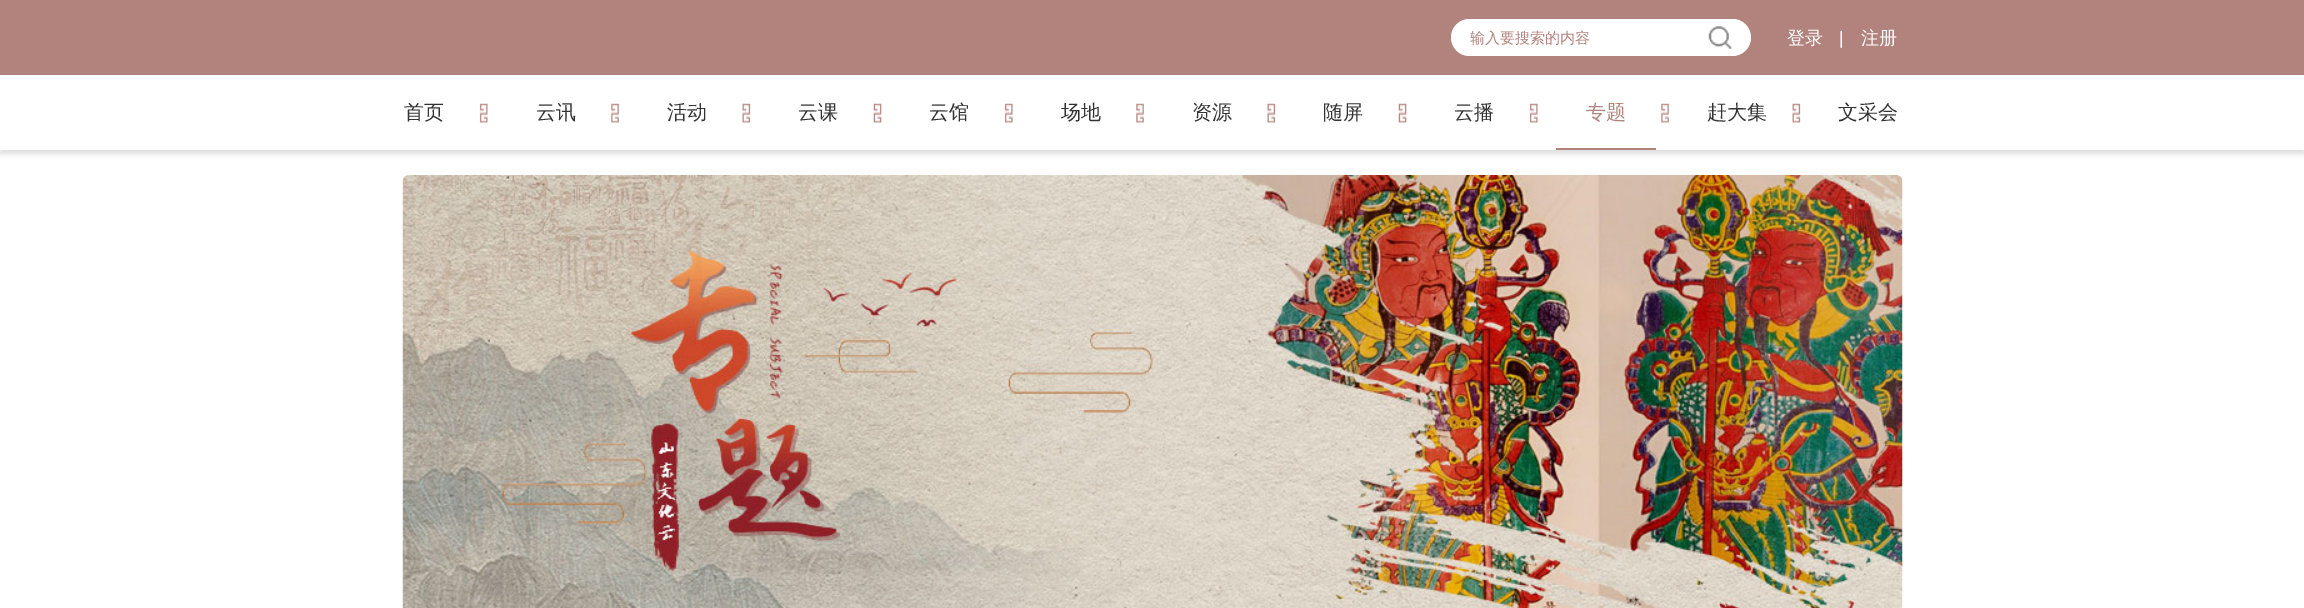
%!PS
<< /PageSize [2304 608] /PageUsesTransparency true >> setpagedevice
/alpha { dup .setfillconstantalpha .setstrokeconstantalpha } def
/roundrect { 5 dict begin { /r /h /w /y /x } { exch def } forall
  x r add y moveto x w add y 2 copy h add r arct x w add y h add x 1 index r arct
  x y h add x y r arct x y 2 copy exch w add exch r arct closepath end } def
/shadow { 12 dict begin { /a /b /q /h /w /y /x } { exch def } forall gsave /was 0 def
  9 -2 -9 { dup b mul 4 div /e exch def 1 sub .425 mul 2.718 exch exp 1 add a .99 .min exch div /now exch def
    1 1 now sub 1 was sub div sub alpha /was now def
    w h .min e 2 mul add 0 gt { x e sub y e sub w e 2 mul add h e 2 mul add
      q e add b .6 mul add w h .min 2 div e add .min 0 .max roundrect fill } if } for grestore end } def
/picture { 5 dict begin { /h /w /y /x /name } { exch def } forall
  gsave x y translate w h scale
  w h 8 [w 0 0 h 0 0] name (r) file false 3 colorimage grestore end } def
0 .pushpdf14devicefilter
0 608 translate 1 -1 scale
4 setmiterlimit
1 setgray
0 0 2304 608 rectfill
0.867 setgray
0 4 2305 150 0 3 1 shadow
0.698 0.514 0.49 setrgbcolor
0 0 2304 75 rectfill
1 setgray
1451 19 300 37 18.5 roundrect fill
/WenQuanYiZenHei-Medium [15 0 0 -15 0 0] selectfont
0.698 0.514 0.49 setrgbcolor
1470 43 moveto (输入要搜索的内容) show
(img1.rgb) 1708 26 24 23 picture
/WenQuanYiZenHei-Medium [18 0 0 -18 0 0] selectfont
1 setgray
1787 44 moveto (登录) show
/LiberationSans-Regular [18 0 0 -18 0 0] selectfont
1839 44 moveto (|) show
/WenQuanYiZenHei-Medium [18 0 0 -18 0 0] selectfont
1861 44 moveto (注册) show
0 75 2304 75 rectfill
(img2.rgb) 479 103 9 20 picture
/WenQuanYiZenHei-Medium [20 0 0 -20 0 0] selectfont
0.2 setgray
404 119 moveto (首页) show
(img3.rgb) 611 103 8 20 picture
536 119 moveto (云讯) show
(img4.rgb) 742 103 9 20 picture
667 119 moveto (活动) show
(img5.rgb) 873 103 9 20 picture
798 119 moveto (云课) show
(img6.rgb) 1004 103 9 20 picture
929 119 moveto (云馆) show
(img7.rgb) 1136 103 8 20 picture
1061 119 moveto (场地) show
(img8.rgb) 1267 103 9 20 picture
1192 119 moveto (资源) show
(img5.rgb) 1398 103 9 20 picture
1323 119 moveto (随屏) show
(img2.rgb) 1529 103 9 20 picture
1454 119 moveto (云播) show
(img7.rgb) 1661 103 8 20 picture
0.698 0.514 0.49 setrgbcolor
1586 119 moveto (专题) show
1556 148 100 2 rectfill
(img4.rgb) 1792 103 9 20 picture
0.2 setgray
1707 119 moveto (赶大集) show
1838 119 moveto (文采会) show
(img9.rgb) 402 175 1501 433 picture
.poppdf14devicefilter showpage
